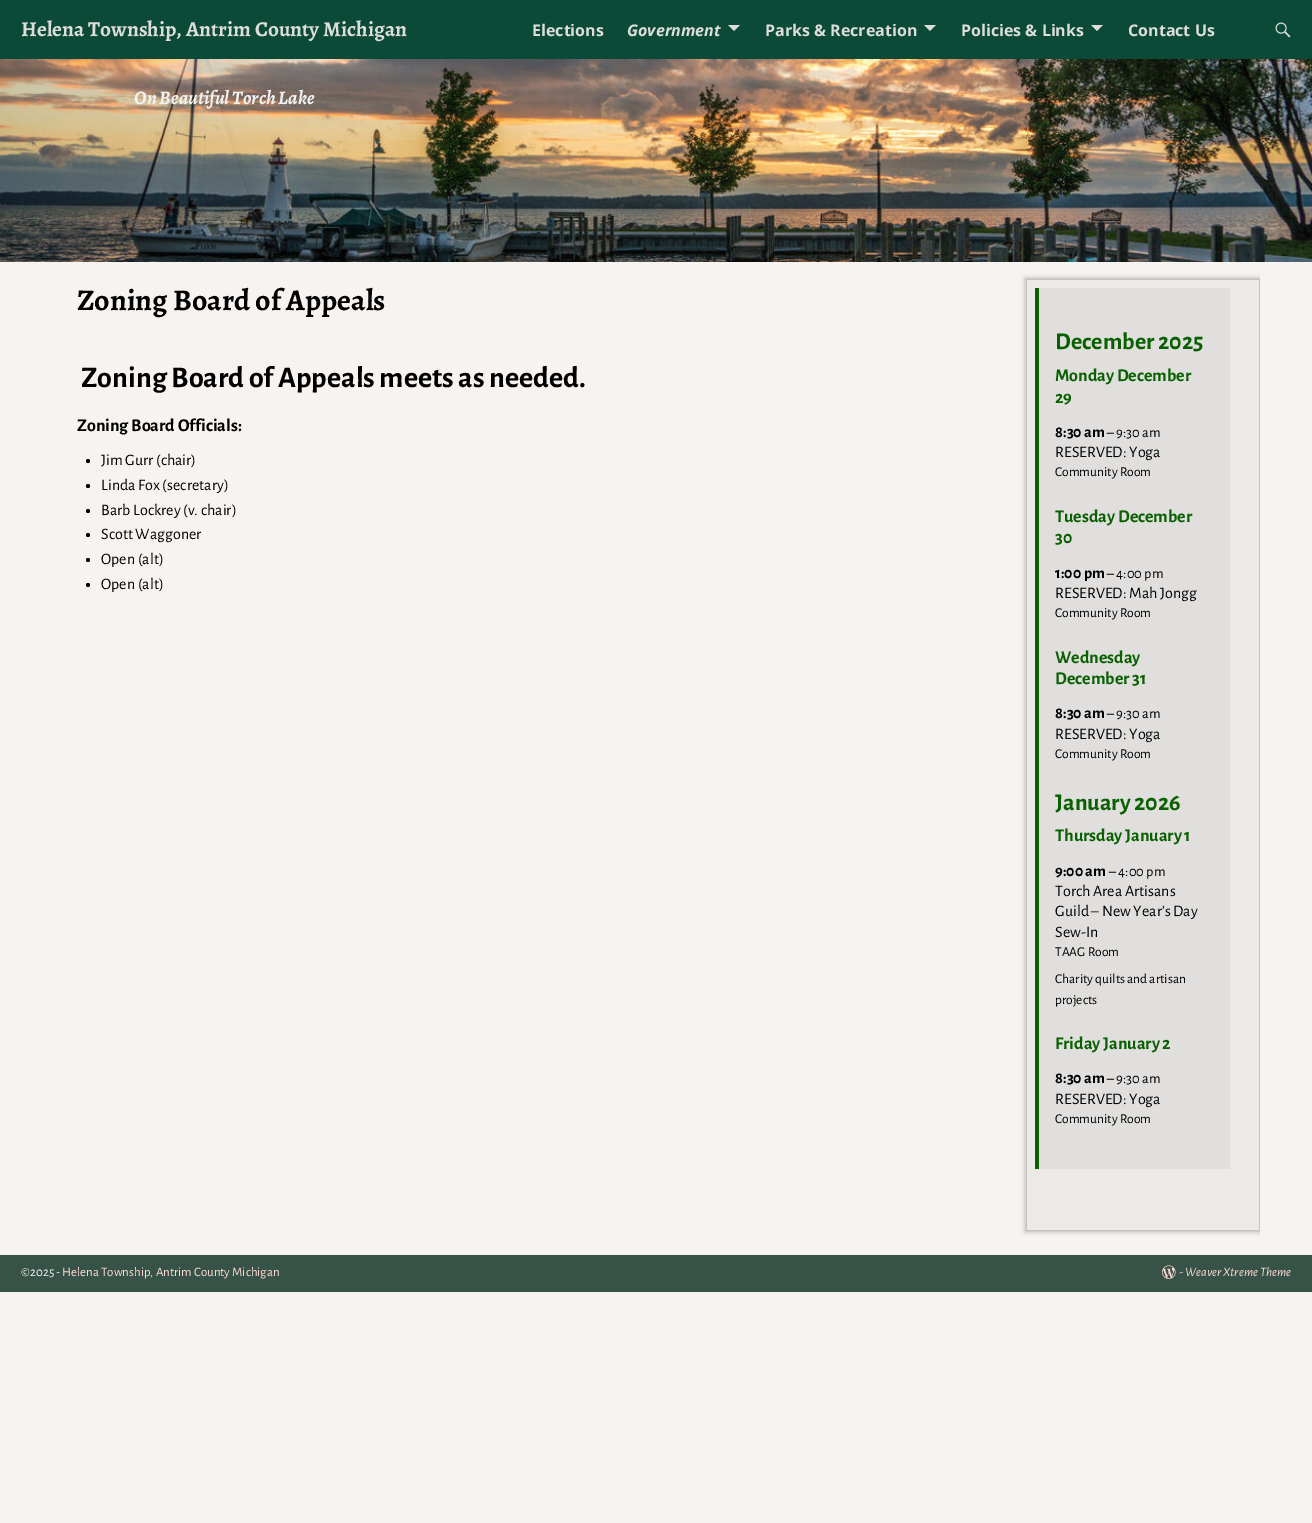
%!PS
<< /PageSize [1312 1523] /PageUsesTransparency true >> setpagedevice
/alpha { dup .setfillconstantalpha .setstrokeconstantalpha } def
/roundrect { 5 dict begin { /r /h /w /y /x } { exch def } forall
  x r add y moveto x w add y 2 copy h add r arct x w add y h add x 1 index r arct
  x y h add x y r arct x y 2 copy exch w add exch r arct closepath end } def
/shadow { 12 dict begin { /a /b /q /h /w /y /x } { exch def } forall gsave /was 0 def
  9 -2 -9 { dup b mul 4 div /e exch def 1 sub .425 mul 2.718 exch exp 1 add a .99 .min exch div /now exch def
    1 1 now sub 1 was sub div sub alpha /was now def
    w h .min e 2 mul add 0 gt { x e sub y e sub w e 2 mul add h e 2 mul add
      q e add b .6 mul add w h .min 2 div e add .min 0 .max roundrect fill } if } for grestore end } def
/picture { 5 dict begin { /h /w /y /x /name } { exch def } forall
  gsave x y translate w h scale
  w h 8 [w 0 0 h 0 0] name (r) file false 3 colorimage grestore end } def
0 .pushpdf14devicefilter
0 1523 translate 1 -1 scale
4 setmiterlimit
0.965 0.953 0.941 setrgbcolor
0 0 1312 1523 rectfill
0.047 0.29 0.22 setrgbcolor
0 0 1312 59 rectfill
/Alegreya-Bold [21.25 0 0 -21.25 0 0] selectfont
0.867 setgray
21 36 moveto (Helena Township, Antrim County Michigan) show
/OpenSans-Bold [16 0 0 -16 0 0] selectfont
532 36 moveto (Elections) show
/OpenSans-BoldItalic [16 0 0 -16 0 0] selectfont
627 36 moveto (Government) show
newpath 728 25 moveto 740 25 lineto 734 31 lineto closepath fill
/OpenSans-Bold [16 0 0 -16 0 0] selectfont
765 36 moveto (Parks & Recreation) show
newpath 924 25 moveto 936 25 lineto 930 31 lineto closepath fill
961 36 moveto (Policies & Links) show
newpath 1091 25 moveto 1103 25 lineto 1097 31 lineto closepath fill
1128 36 moveto (Contact Us) show
(img1.rgb) 1275 22 16 16 picture
(img2.rgb) 0 59 1312 203 picture
/Alegreya-BoldItalic [19.25 0 0 -19.25 0 0] selectfont
0.949 setgray
134 104 moveto (On Beautiful Torch Lake) show
/Alegreya-Bold [30 0 0 -30 0 0] selectfont
0 setgray
77 310 moveto (Zoning Board of Appeals) show
/AlegreyaSans-Bold [30 0 0 -30 0 0] selectfont
81 387 moveto (Zoning Board of Appeals meets as needed.) show
/AlegreyaSans-Bold [18 0 0 -18 0 0] selectfont
77 431 moveto (Zoning Board Officials:) show
newpath 88 461 2 0 360 arc closepath fill
/AlegreyaSans-Regular [16 0 0 -16 0 0] selectfont
101 465 moveto (Jim Gurr \(chair\)) show
newpath 88 486 2 0 360 arc closepath fill
101 490 moveto (Linda Fox \(secretary\)) show
newpath 88 511 2 0 360 arc closepath fill
101 515 moveto (Barb Lockrey \(v. chair\)) show
newpath 88 535 2 0 360 arc closepath fill
101 539 moveto (Scott Waggoner) show
newpath 88 560 2 0 360 arc closepath fill
101 564 moveto (Open \(alt\)) show
newpath 88 585 2 0 360 arc closepath fill
101 589 moveto (Open \(alt\)) show
gsave
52 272 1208 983 rectclip
1025 278 236 954 0 2 0.25 shadow
grestore
0.925 0.918 0.906 setrgbcolor
1027 280 232 950 rectfill
0.882 0.875 0.867 setrgbcolor
1039 288 191 881 rectfill
0.031 0.376 0 setrgbcolor
1035 288 4 881 rectfill
/AlegreyaSans-Bold [24 0 0 -24 0 0] selectfont
1055 349 moveto (December 2025) show
/AlegreyaSans-Bold [18 0 0 -18 0 0] selectfont
1055 381 moveto (Monday December) show
1055 403 moveto (29) show
/AlegreyaSans-Bold [16 0 0 -16 0 0] selectfont
0 setgray
1055 437 moveto (8:30 am) show
/AlegreyaSans-Regular [14.5 0 0 -14.5 0 0] selectfont
1107 437 moveto (– 9:30 am) show
/AlegreyaSans-Regular [16 0 0 -16 0 0] selectfont
1055 457 moveto (RESERVED: Yoga) show
/AlegreyaSans-Regular [13.5 0 0 -13.5 0 0] selectfont
1055 476 moveto (Community Room) show
/AlegreyaSans-Bold [18 0 0 -18 0 0] selectfont
0.031 0.376 0 setrgbcolor
1055 522 moveto (Tuesday December) show
1055 543 moveto (30) show
/AlegreyaSans-Bold [16 0 0 -16 0 0] selectfont
0 setgray
1055 578 moveto (1:00 pm) show
/AlegreyaSans-Regular [14.5 0 0 -14.5 0 0] selectfont
1107 578 moveto (– 4:00 pm) show
/AlegreyaSans-Regular [16 0 0 -16 0 0] selectfont
1055 598 moveto (RESERVED: Mah Jongg) show
/AlegreyaSans-Regular [13.5 0 0 -13.5 0 0] selectfont
1055 617 moveto (Community Room) show
/AlegreyaSans-Bold [18 0 0 -18 0 0] selectfont
0.031 0.376 0 setrgbcolor
1055 663 moveto (Wednesday) show
1055 684 moveto (December 31) show
/AlegreyaSans-Bold [16 0 0 -16 0 0] selectfont
0 setgray
1055 718 moveto (8:30 am) show
/AlegreyaSans-Regular [14.5 0 0 -14.5 0 0] selectfont
1107 718 moveto (– 9:30 am) show
/AlegreyaSans-Regular [16 0 0 -16 0 0] selectfont
1055 739 moveto (RESERVED: Yoga) show
/AlegreyaSans-Regular [13.5 0 0 -13.5 0 0] selectfont
1055 758 moveto (Community Room) show
/AlegreyaSans-Bold [24 0 0 -24 0 0] selectfont
0.031 0.376 0 setrgbcolor
1055 810 moveto (January 2026) show
/AlegreyaSans-Bold [18 0 0 -18 0 0] selectfont
1055 841 moveto (Thursday January 1) show
/AlegreyaSans-Bold [16 0 0 -16 0 0] selectfont
0 setgray
1055 876 moveto (9:00 am) show
/AlegreyaSans-Regular [14.5 0 0 -14.5 0 0] selectfont
1109 876 moveto (– 4:00 pm) show
/AlegreyaSans-Regular [16 0 0 -16 0 0] selectfont
1055 896 moveto (Torch Area Artisans) show
1055 916 moveto (Guild – New Year’s Day) show
1055 937 moveto (Sew-In) show
/AlegreyaSans-Regular [13.5 0 0 -13.5 0 0] selectfont
1055 956 moveto (TAAG Room) show
1055 983 moveto (Charity quilts and artisan) show
1055 1004 moveto (projects) show
/AlegreyaSans-Bold [18 0 0 -18 0 0] selectfont
0.031 0.376 0 setrgbcolor
1055 1049 moveto (Friday January 2) show
/AlegreyaSans-Bold [16 0 0 -16 0 0] selectfont
0 setgray
1055 1083 moveto (8:30 am) show
/AlegreyaSans-Regular [14.5 0 0 -14.5 0 0] selectfont
1107 1083 moveto (– 9:30 am) show
/AlegreyaSans-Regular [16 0 0 -16 0 0] selectfont
1055 1104 moveto (RESERVED: Yoga) show
/AlegreyaSans-Regular [13.5 0 0 -13.5 0 0] selectfont
1055 1123 moveto (Community Room) show
0.216 0.322 0.278 setrgbcolor
0 1255 1312 37 rectfill
/AlegreyaSans-Regular [13 0 0 -13 0 0] selectfont
0.976 setgray
21 1276 moveto (©2025 -) show
1 0.859 0.831 setrgbcolor
62 1276 moveto (Helena Township, Antrim County Michigan) show
(img3.rgb) 1162 1265 14 14 picture
/AlegreyaSans-Italic [13 0 0 -13 0 0] selectfont
1179 1276 moveto (- Weaver Xtreme Theme) show
.poppdf14devicefilter showpage
